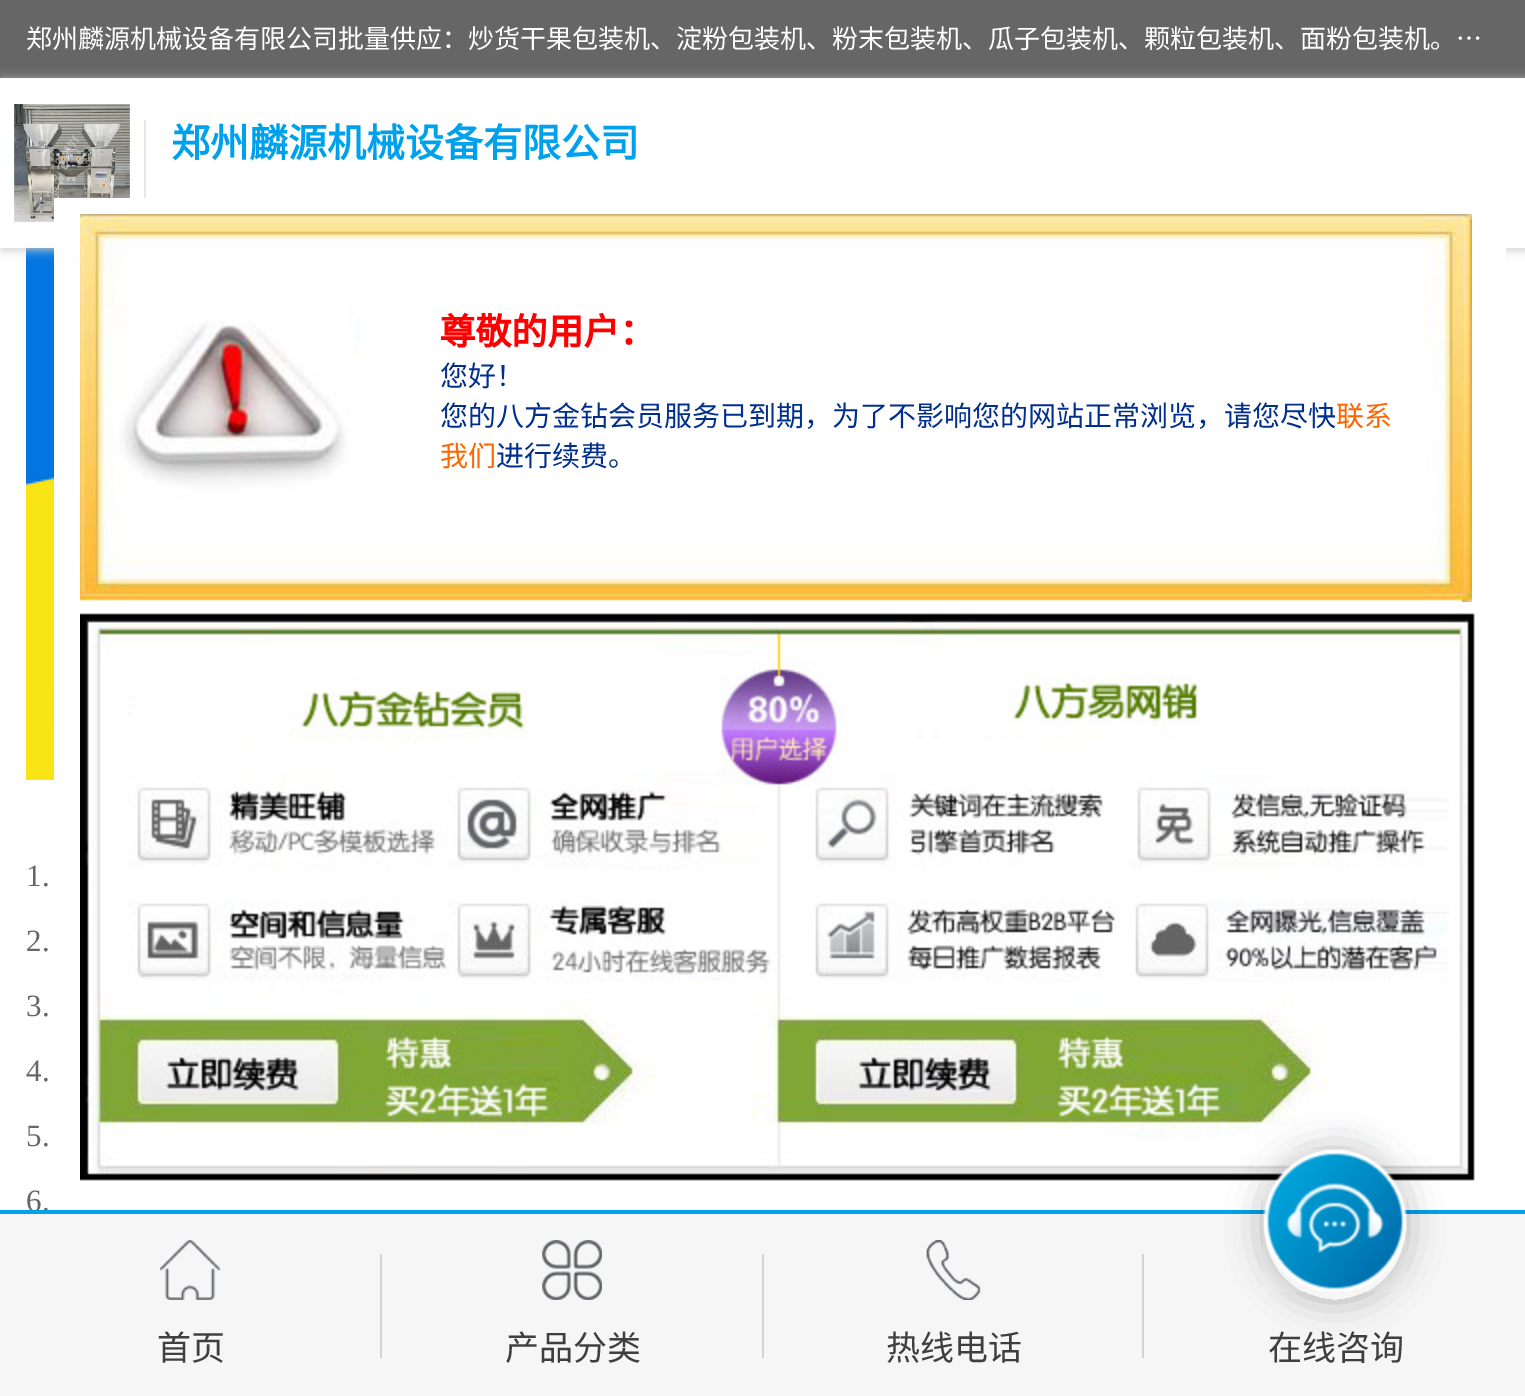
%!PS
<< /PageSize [1525 1396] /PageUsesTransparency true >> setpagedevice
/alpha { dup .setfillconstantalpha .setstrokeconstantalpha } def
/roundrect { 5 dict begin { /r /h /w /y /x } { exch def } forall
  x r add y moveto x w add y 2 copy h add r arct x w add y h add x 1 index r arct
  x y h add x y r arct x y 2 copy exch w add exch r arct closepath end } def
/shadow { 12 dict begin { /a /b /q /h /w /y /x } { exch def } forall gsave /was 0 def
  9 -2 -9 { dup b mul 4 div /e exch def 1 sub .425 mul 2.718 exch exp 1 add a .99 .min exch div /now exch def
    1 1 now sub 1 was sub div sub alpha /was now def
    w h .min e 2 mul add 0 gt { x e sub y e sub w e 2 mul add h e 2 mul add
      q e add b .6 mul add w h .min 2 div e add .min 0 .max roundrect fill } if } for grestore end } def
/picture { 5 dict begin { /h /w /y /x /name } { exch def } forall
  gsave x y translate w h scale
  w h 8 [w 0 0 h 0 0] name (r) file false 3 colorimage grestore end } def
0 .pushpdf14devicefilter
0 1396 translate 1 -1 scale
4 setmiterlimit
1 setgray
0 0 1525 1396 rectfill
0.4 setgray
0 0 1525 78 rectfill
/NotoSansCJKSC-Regular [26 0 0 -26 0 0] selectfont
1 setgray
26 48 moveto (郑州麟源机械设备有限公司批量供应：炒货干果包装机、淀粉包装机、粉末包装机、瓜子包装机、颗粒包装机、面粉包装机。…) show
(img2.rgb) 26 248 28 532 picture
0.8 setgray
2 80 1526 170 0 5 1 shadow
1 setgray
0 78 1525 170 rectfill
(img1.rgb) 14 104 116 118 picture
0.906 setgray
144 120 2 78 rectfill
/NotoSansCJKSC-Bold [39 0 0 -39 0 0] selectfont
0 0.631 0.925 setrgbcolor
171 157 moveto (郑州麟源机械设备有限公司) show
/LiberationSerif-Regular [31 0 0 -31 0 0] selectfont
0.4 setgray
26 886 moveto (1.) show
26 951 moveto (2.) show
26 1016 moveto (3.) show
26 1081 moveto (4.) show
26 1146 moveto (5.) show
26 1211 moveto (6.) show
1 setgray
54 198 1452 60 rectfill
(img3.rgb) 80 214 1395 967 picture
0.965 setgray
0 1214 1525 182 rectfill
0 0.631 0.925 setrgbcolor
0 1210 1525 4 rectfill
(img4.rgb) 160 1240 60 60 picture
/NotoSansCJKSC-Regular [34 0 0 -34 0 0] selectfont
0.247 setgray
157 1360 moveto (首页) show
0.827 setgray
380 1254 2 104 rectfill
(img5.rgb) 542 1240 60 60 picture
0.247 setgray
505 1360 moveto (产品分类) show
0.827 setgray
762 1254 2 104 rectfill
(img6.rgb) 926 1240 55 60 picture
0.247 setgray
886 1360 moveto (热线电话) show
0.827 setgray
1142 1254 2 104 rectfill
gsave
newpath 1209 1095 moveto 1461 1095 lineto 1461 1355 lineto 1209 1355 lineto closepath 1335 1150 moveto 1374 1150 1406 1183.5 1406 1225 curveto 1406 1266.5 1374 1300 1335 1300 curveto 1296 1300 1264 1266.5 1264 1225 curveto 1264 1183.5 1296 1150 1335 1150 curveto closepath eoclip newpath
0 setgray
1264 1150 142 150 71 18 0.28 shadow
grestore
(img7.rgb) 1263 1149 144 143 picture
0.247 setgray
1268 1360 moveto (在线咨询) show
.poppdf14devicefilter showpage
